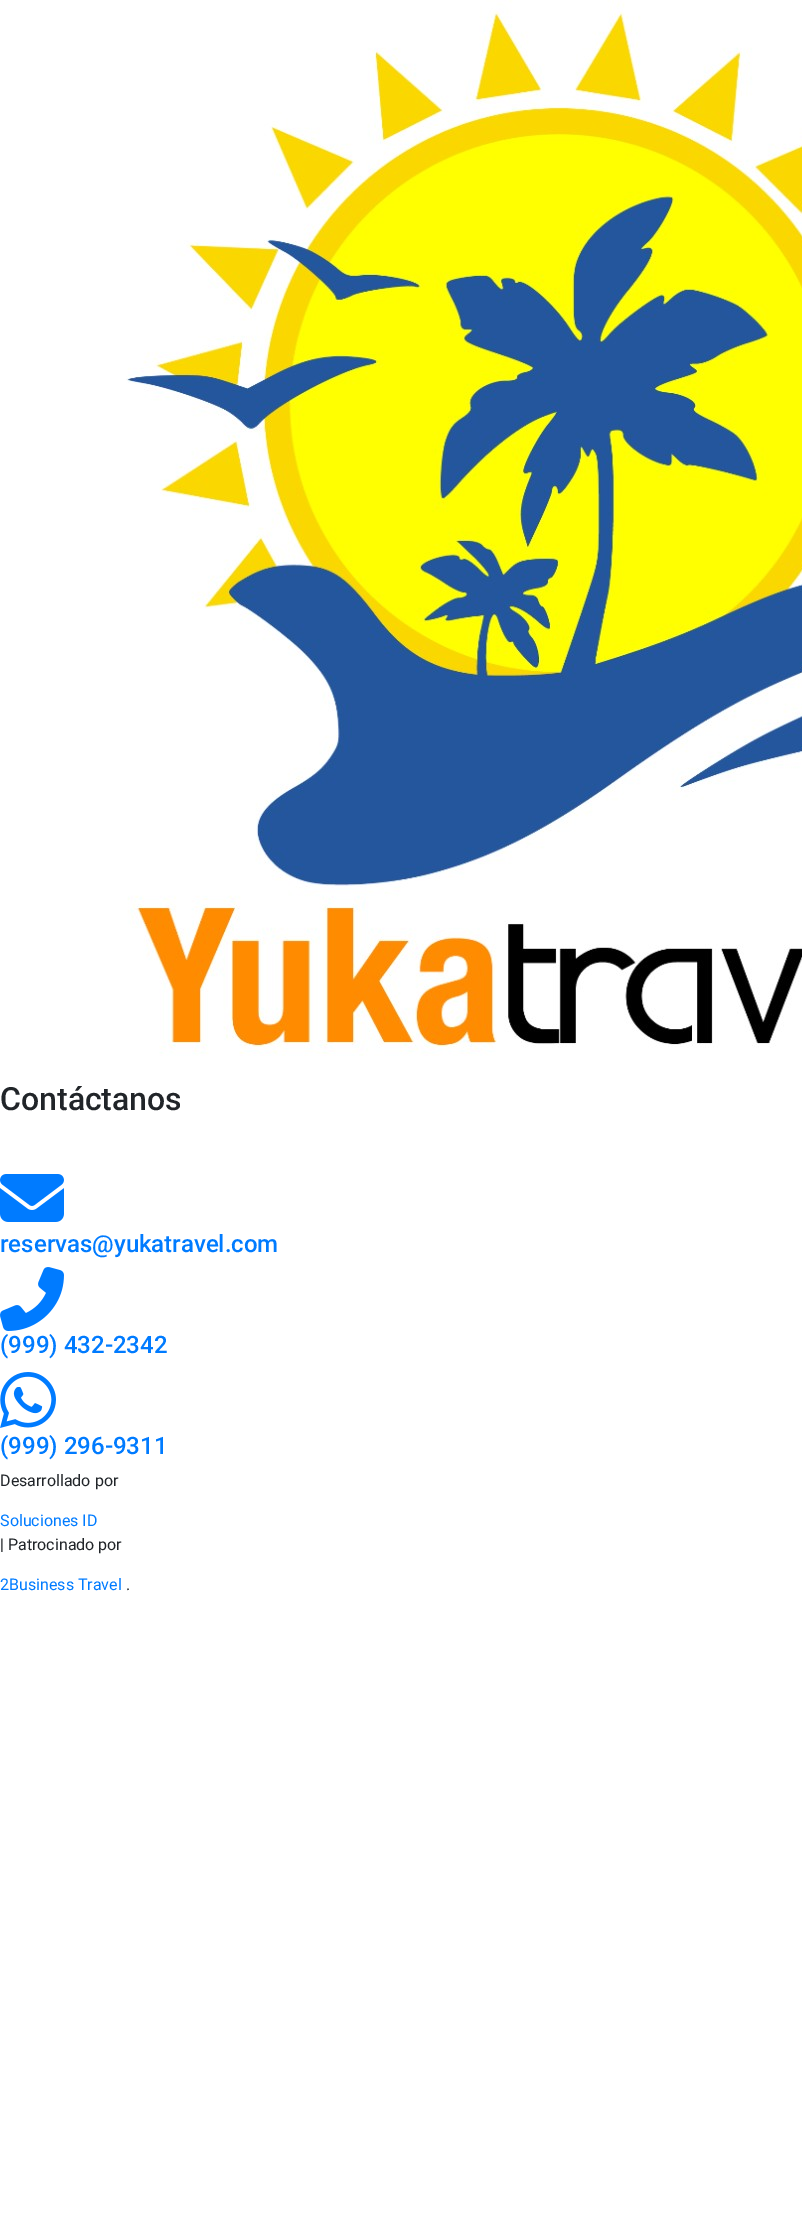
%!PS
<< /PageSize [802 2224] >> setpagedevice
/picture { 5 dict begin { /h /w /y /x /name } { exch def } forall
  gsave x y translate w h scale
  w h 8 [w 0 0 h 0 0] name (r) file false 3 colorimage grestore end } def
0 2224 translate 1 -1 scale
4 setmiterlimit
1 setgray
0 0 802 2224 rectfill
(img1.rgb) 126 0 676 1056 picture
/Roboto-Medium [32 0 0 -32 0 0] selectfont
0.129 0.145 0.161 setrgbcolor
0 1110 moveto (Contáctanos) show
(img2.rgb) 0 1174 64 48 picture
/Roboto-Medium [24 0 0 -24 0 0] selectfont
0 0.482 1 setrgbcolor
0 1252 moveto (reservas@yukatravel.com) show
(img3.rgb) 0 1267 64 64 picture
0 1353 moveto (\(999\) 432-2342) show
(img4.rgb) 0 1372 56 56 picture
0 1454 moveto (\(999\) 296-9311) show
/Roboto-Regular [16 0 0 -16 0 0] selectfont
0.129 0.145 0.161 setrgbcolor
0 1486 moveto (Desarrollado por) show
0 0.482 1 setrgbcolor
0 1526 moveto (Soluciones ID) show
0.129 0.145 0.161 setrgbcolor
0 1550 moveto (| Patrocinado por) show
0 0.482 1 setrgbcolor
0 1590 moveto (2Business Travel) show
0.129 0.145 0.161 setrgbcolor
126 1590 moveto (.) show
showpage
